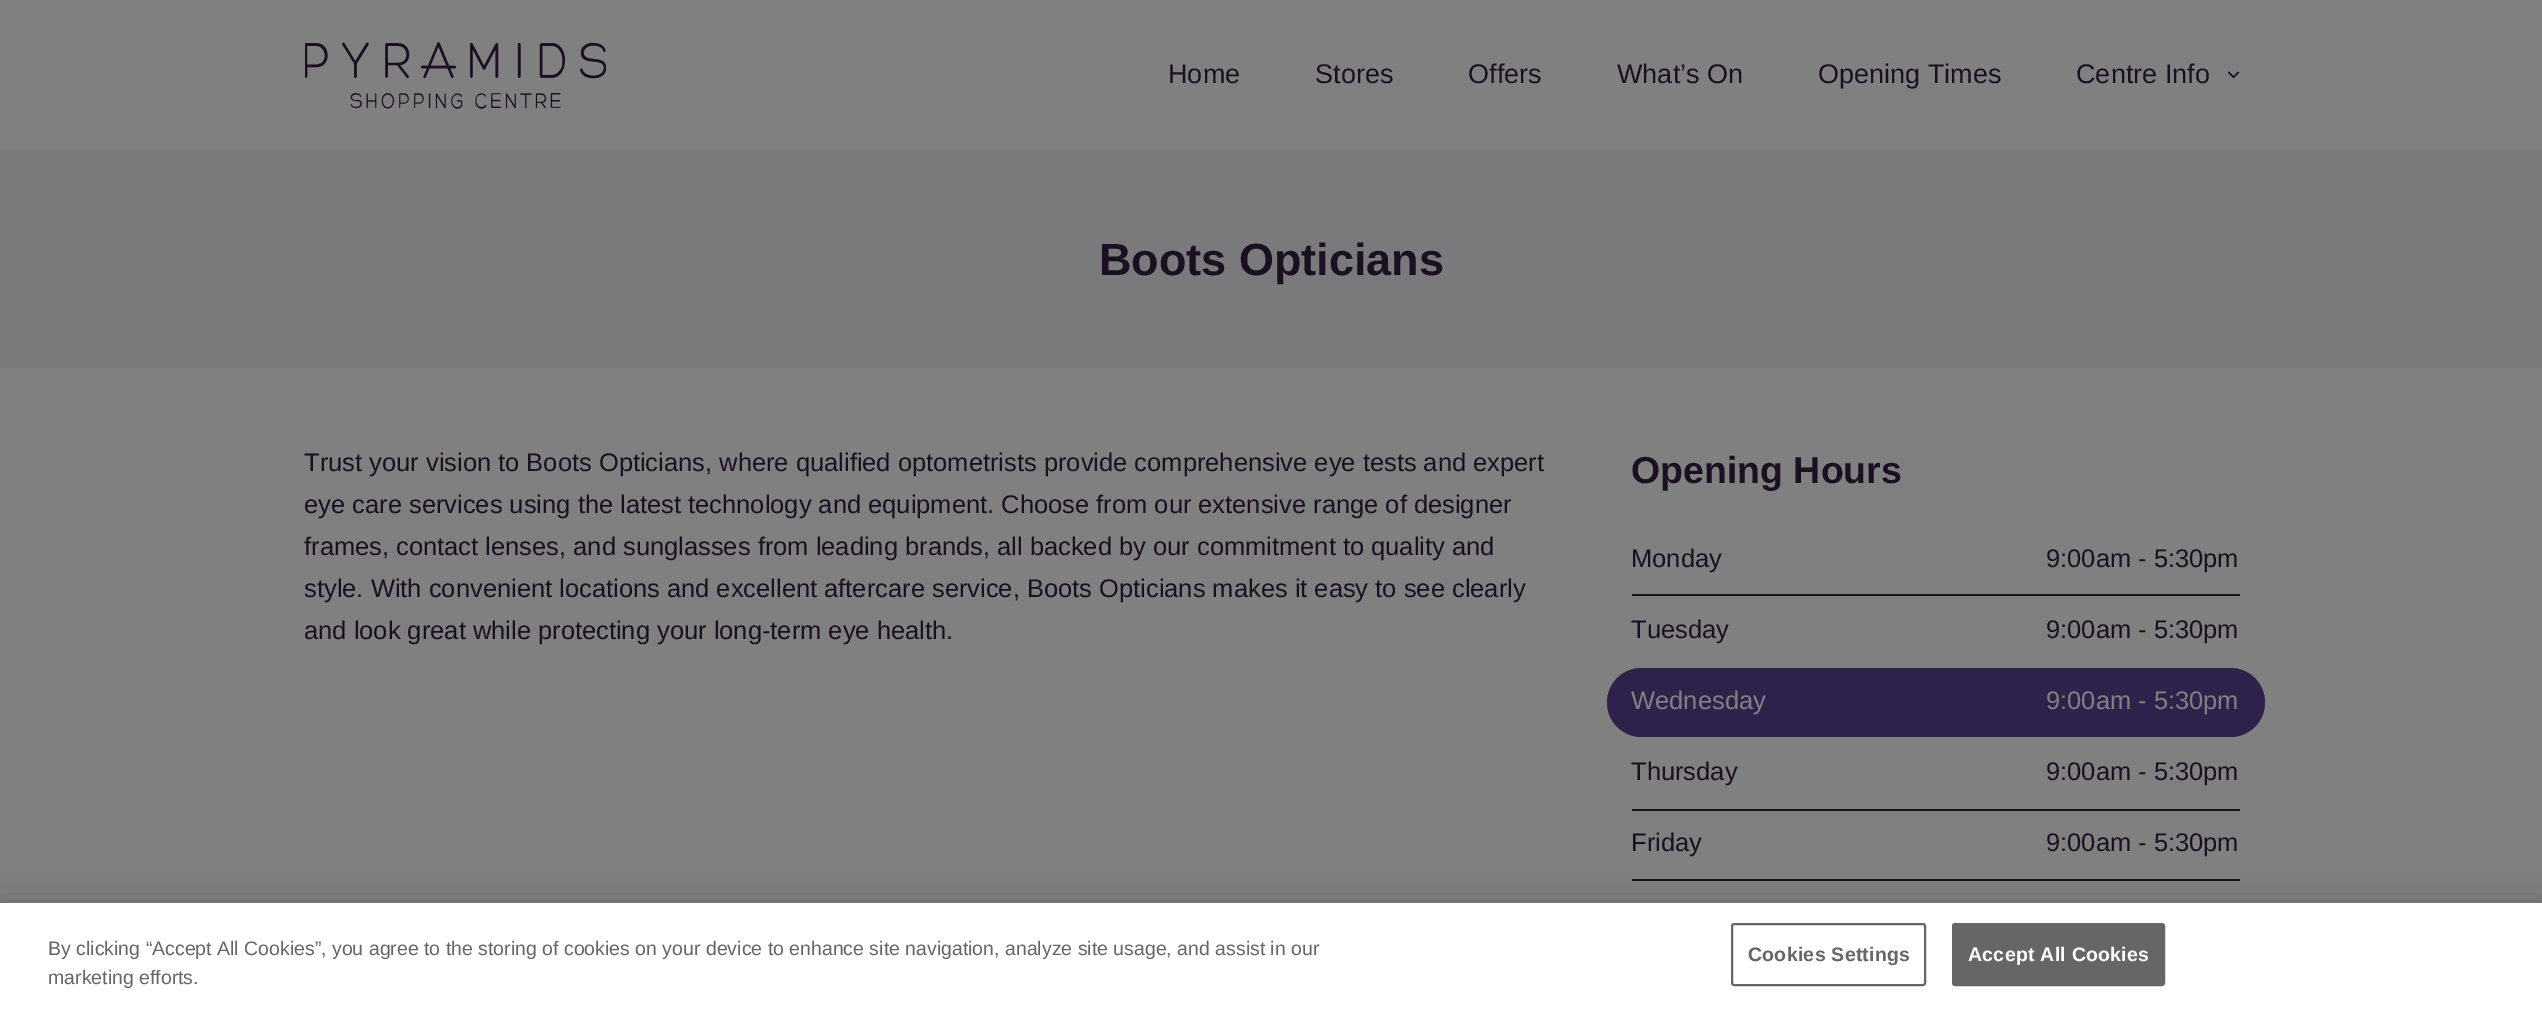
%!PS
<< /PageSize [2542 1009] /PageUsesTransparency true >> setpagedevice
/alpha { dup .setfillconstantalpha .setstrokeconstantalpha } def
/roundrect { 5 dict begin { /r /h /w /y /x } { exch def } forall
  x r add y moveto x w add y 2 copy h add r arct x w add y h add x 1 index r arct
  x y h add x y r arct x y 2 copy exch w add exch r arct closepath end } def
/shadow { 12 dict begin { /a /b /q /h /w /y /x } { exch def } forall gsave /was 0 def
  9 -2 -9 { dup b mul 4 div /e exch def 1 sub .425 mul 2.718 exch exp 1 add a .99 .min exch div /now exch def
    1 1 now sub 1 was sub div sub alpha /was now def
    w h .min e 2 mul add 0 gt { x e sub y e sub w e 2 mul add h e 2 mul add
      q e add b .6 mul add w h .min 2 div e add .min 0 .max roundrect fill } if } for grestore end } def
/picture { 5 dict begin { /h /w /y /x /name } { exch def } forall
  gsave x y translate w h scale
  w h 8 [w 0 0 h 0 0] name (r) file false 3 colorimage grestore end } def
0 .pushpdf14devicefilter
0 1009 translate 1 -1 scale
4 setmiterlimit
0.502 setgray
0 0 2542 1009 rectfill
(img1.rgb) 305 42 301 67 picture
/LiberationSans-Regular [27 0 0 -27 0 0] selectfont
0.106 0.063 0.133 setrgbcolor
1168 83 moveto (Home) show
1315 83 moveto (Stores) show
1468 83 moveto (Offers) show
1617 83 moveto (What’s On) show
1818 83 moveto (Opening Times) show
2076 83 moveto (Centre Info) show
(img2.rgb) 2228 71 12 8 picture
0.478 0.475 0.486 setrgbcolor
0 150 2542 218 rectfill
/LiberationSans-Bold [45 0 0 -45 0 0] selectfont
0.106 0.063 0.133 setrgbcolor
1099 275 moveto (Boots Opticians) show
/LiberationSans-Regular [25.5 0 0 -25.5 0 0] selectfont
304 471 moveto (Trust your vision to Boots Opticians, where qualified optometrists provide comprehensive eye tests and expert) show
304 513 moveto (eye care services using the latest technology and equipment. Choose from our extensive range of designer) show
304 555 moveto (frames, contact lenses, and sunglasses from leading brands, all backed by our commitment to quality and) show
304 597 moveto (style. With convenient locations and excellent aftercare service, Boots Opticians makes it easy to see clearly) show
304 639 moveto (and look great while protecting your long-term eye health.) show
/LiberationSans-Bold [37.5 0 0 -37.5 0 0] selectfont
1631 483 moveto (Opening Hours) show
1632 594 608 2 rectfill
/LiberationSans-Regular [25.5 0 0 -25.5 0 0] selectfont
1631 567 moveto (Monday) show
2046 567 moveto (9:00am - 5:30pm) show
1631 638 moveto (Tuesday) show
2046 638 moveto (9:00am - 5:30pm) show
0.18 0.133 0.302 setrgbcolor
1607 668 658 69 34.5 roundrect fill
0.502 setgray
1631 709 moveto (Wednesday) show
2046 709 moveto (9:00am - 5:30pm) show
0.106 0.063 0.133 setrgbcolor
1632 809 608 2 rectfill
1631 780 moveto (Thursday) show
2046 780 moveto (9:00am - 5:30pm) show
1632 879 608 2 rectfill
1631 851 moveto (Friday) show
2046 851 moveto (9:00am - 5:30pm) show
0 setgray
0 903 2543 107 0 13.5 0.2 shadow
1 setgray
0 903 2542 106 rectfill
/LiberationSans-Regular [19.5 0 0 -19.5 0 0] selectfont
0.4 setgray
48 955 moveto (By clicking “Accept All Cookies”, you agree to the storing of cookies on your device to enhance site navigation, analyze site usage, and assist in our) show
48 984 moveto (marketing efforts.) show
2 setlinewidth
1732 924 193 61 2 roundrect stroke
/LiberationSans-Bold [19.5 0 0 -19.5 0 0] selectfont
1748 961 moveto 0.25 0 (Cookies Settings) ashow
1953 924 211 61 2 roundrect gsave fill grestore
stroke
1 setgray
1968 961 moveto 0.25 0 (Accept All Cookies) ashow
.poppdf14devicefilter showpage
